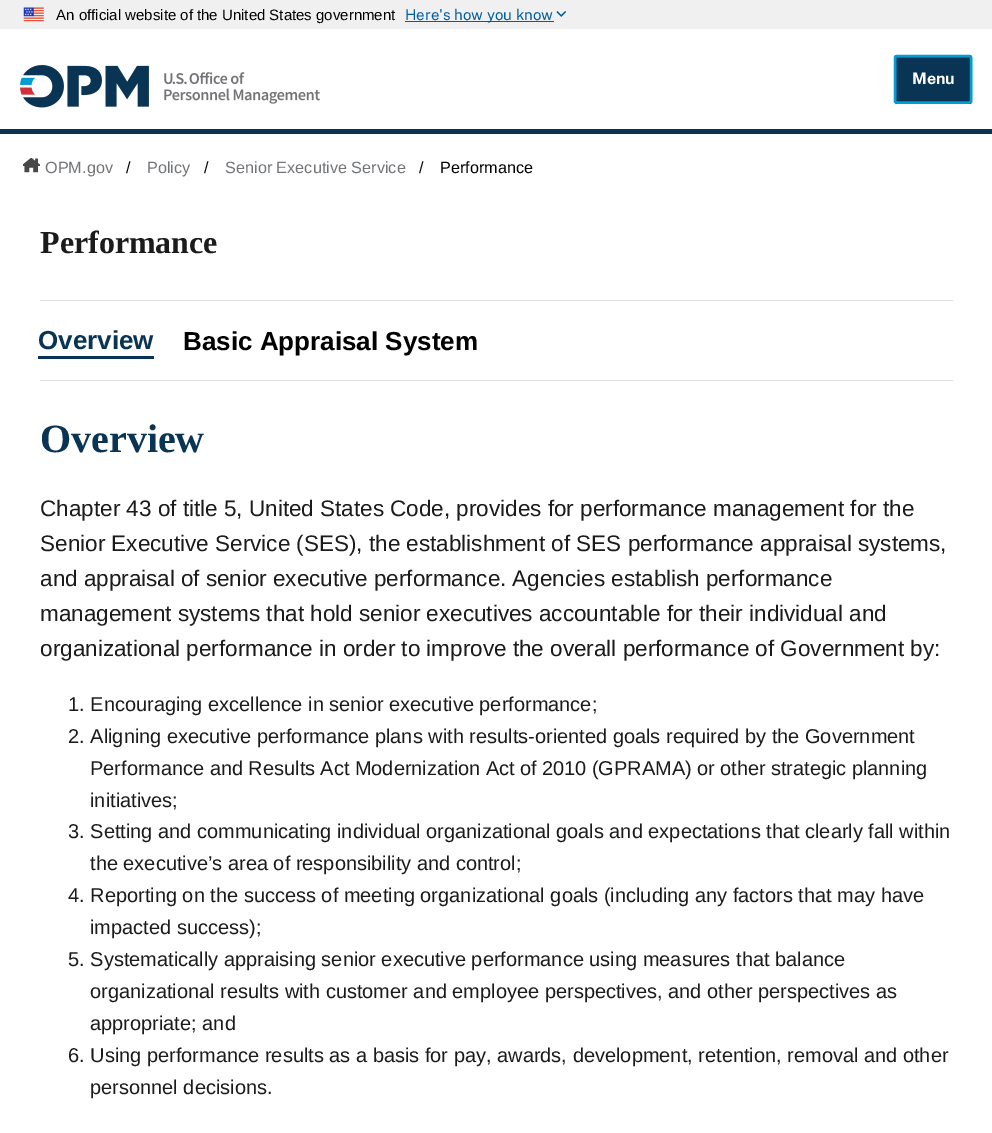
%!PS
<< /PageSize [992 1133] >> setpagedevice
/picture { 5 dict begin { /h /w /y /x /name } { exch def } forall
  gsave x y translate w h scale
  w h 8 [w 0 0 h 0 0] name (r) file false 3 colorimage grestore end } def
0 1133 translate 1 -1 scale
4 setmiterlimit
1 setgray
0 0 992 1133 rectfill
0.941 setgray
0 0 992 29 rectfill
(img1.rgb) 23 7 21 15 picture
/LiberationSans-Regular [15 0 0 -15 0 0] selectfont
0 setgray
56 20 moveto (An official website of the United States government) show
0 0.369 0.635 setrgbcolor
405 21 149 1 rectfill
/PublicSans-Regular [15 0 0 -15 0 0] selectfont
405 20 moveto (Here's how you know) show
(img2.rgb) 556 11 10 6 picture
0.035 0.204 0.325 setrgbcolor
0 129 992 5 rectfill
(img3.rgb) 20 65 300 43 picture
newpath 898 55 moveto 969 55 lineto 971 55 972 56 972 57 curveto 972 101 lineto 972 103 971 104 969 104 curveto 898 104 lineto 896 104 894 103 894 101 curveto 894 57 lineto 894 56 896 55 898 55 curveto closepath fill
0 0.62 0.82 setrgbcolor
2.5 setlinewidth
newpath 897.5 56 moveto 968.5 56 lineto 970 56 971 57 971 57.5 curveto 971 101.5 lineto 971 102 970 102.5 968.5 102.5 curveto 897.5 102.5 lineto 896 102.5 895 102 895 101.5 curveto 895 57.5 lineto 895 57 896 56 897.5 56 curveto closepath stroke
/PublicSans-Bold [16 0 0 -16 0 0] selectfont
1 setgray
912 84 moveto (Menu) show
(img4.rgb) 23 158 17 15 picture
/LiberationSans-Regular [16.25 0 0 -16.25 0 0] selectfont
0.447 0.455 0.467 setrgbcolor
45 173 moveto (OPM.gov) show
0 setgray
126 173 moveto (/) show
0.447 0.455 0.467 setrgbcolor
147 173 moveto (Policy) show
0 setgray
204 173 moveto (/) show
0.447 0.455 0.467 setrgbcolor
225 173 moveto (Senior Executive Service) show
0 setgray
419 173 moveto (/) show
440 173 moveto (Performance) show
/LiberationSerif-Bold [32 0 0 -32 0 0] selectfont
0.106 setgray
40 253 moveto (Performance) show
0.878 setgray
40 300 913 1 rectfill
40 380 913 1 rectfill
0.035 0.204 0.325 setrgbcolor
38 356 116 3 rectfill
/LiberationSans-Bold [26 0 0 -26 0 0] selectfont
38 349 moveto (Overview) show
0 setgray
183 350 moveto (Basic Appraisal System) show
/LiberationSerif-Bold [40 0 0 -40 0 0] selectfont
0.035 0.204 0.325 setrgbcolor
40 452 moveto (Overview) show
/LiberationSans-Regular [22.5 0 0 -22.5 0 0] selectfont
0.106 setgray
40 516 moveto (Chapter 43 of title 5, United States Code, provides for performance management for the) show
40 551 moveto (Senior Executive Service \(SES\), the establishment of SES performance appraisal systems,) show
40 586 moveto -0.25 0 32 (and appraisal of senior executive performance. Agencies establish performance) widthshow
40 621 moveto (management systems that hold senior executives accountable for their individual and) show
40 656 moveto (organizational performance in order to improve the overall performance of Government by:) show
/LiberationSans-Regular [20 0 0 -20 0 0] selectfont
68 711 moveto (1. Encouraging excellence in senior executive performance;) show
68 743 moveto (2. Aligning executive performance plans with results-oriented goals required by the Government) show
90 775 moveto -0.25 0 32 (Performance and Results Act Modernization Act of 2010 \(GPRAMA\) or other strategic planning) widthshow
90 807 moveto (initiatives;) show
68 838 moveto (3. Setting and communicating individual organizational goals and expectations that clearly fall within) show
90 870 moveto (the executive’s area of responsibility and control;) show
68 902 moveto (4. Reporting on the success of meeting organizational goals \(including any factors that may have) show
90 934 moveto (impacted success\);) show
68 966 moveto (5. Systematically appraising senior executive performance using measures that balance) show
90 998 moveto (organizational results with customer and employee perspectives, and other perspectives as) show
90 1030 moveto (appropriate; and) show
68 1062 moveto (6. Using performance results as a basis for pay, awards, development, retention, removal and other) show
90 1094 moveto (personnel decisions.) show
showpage
